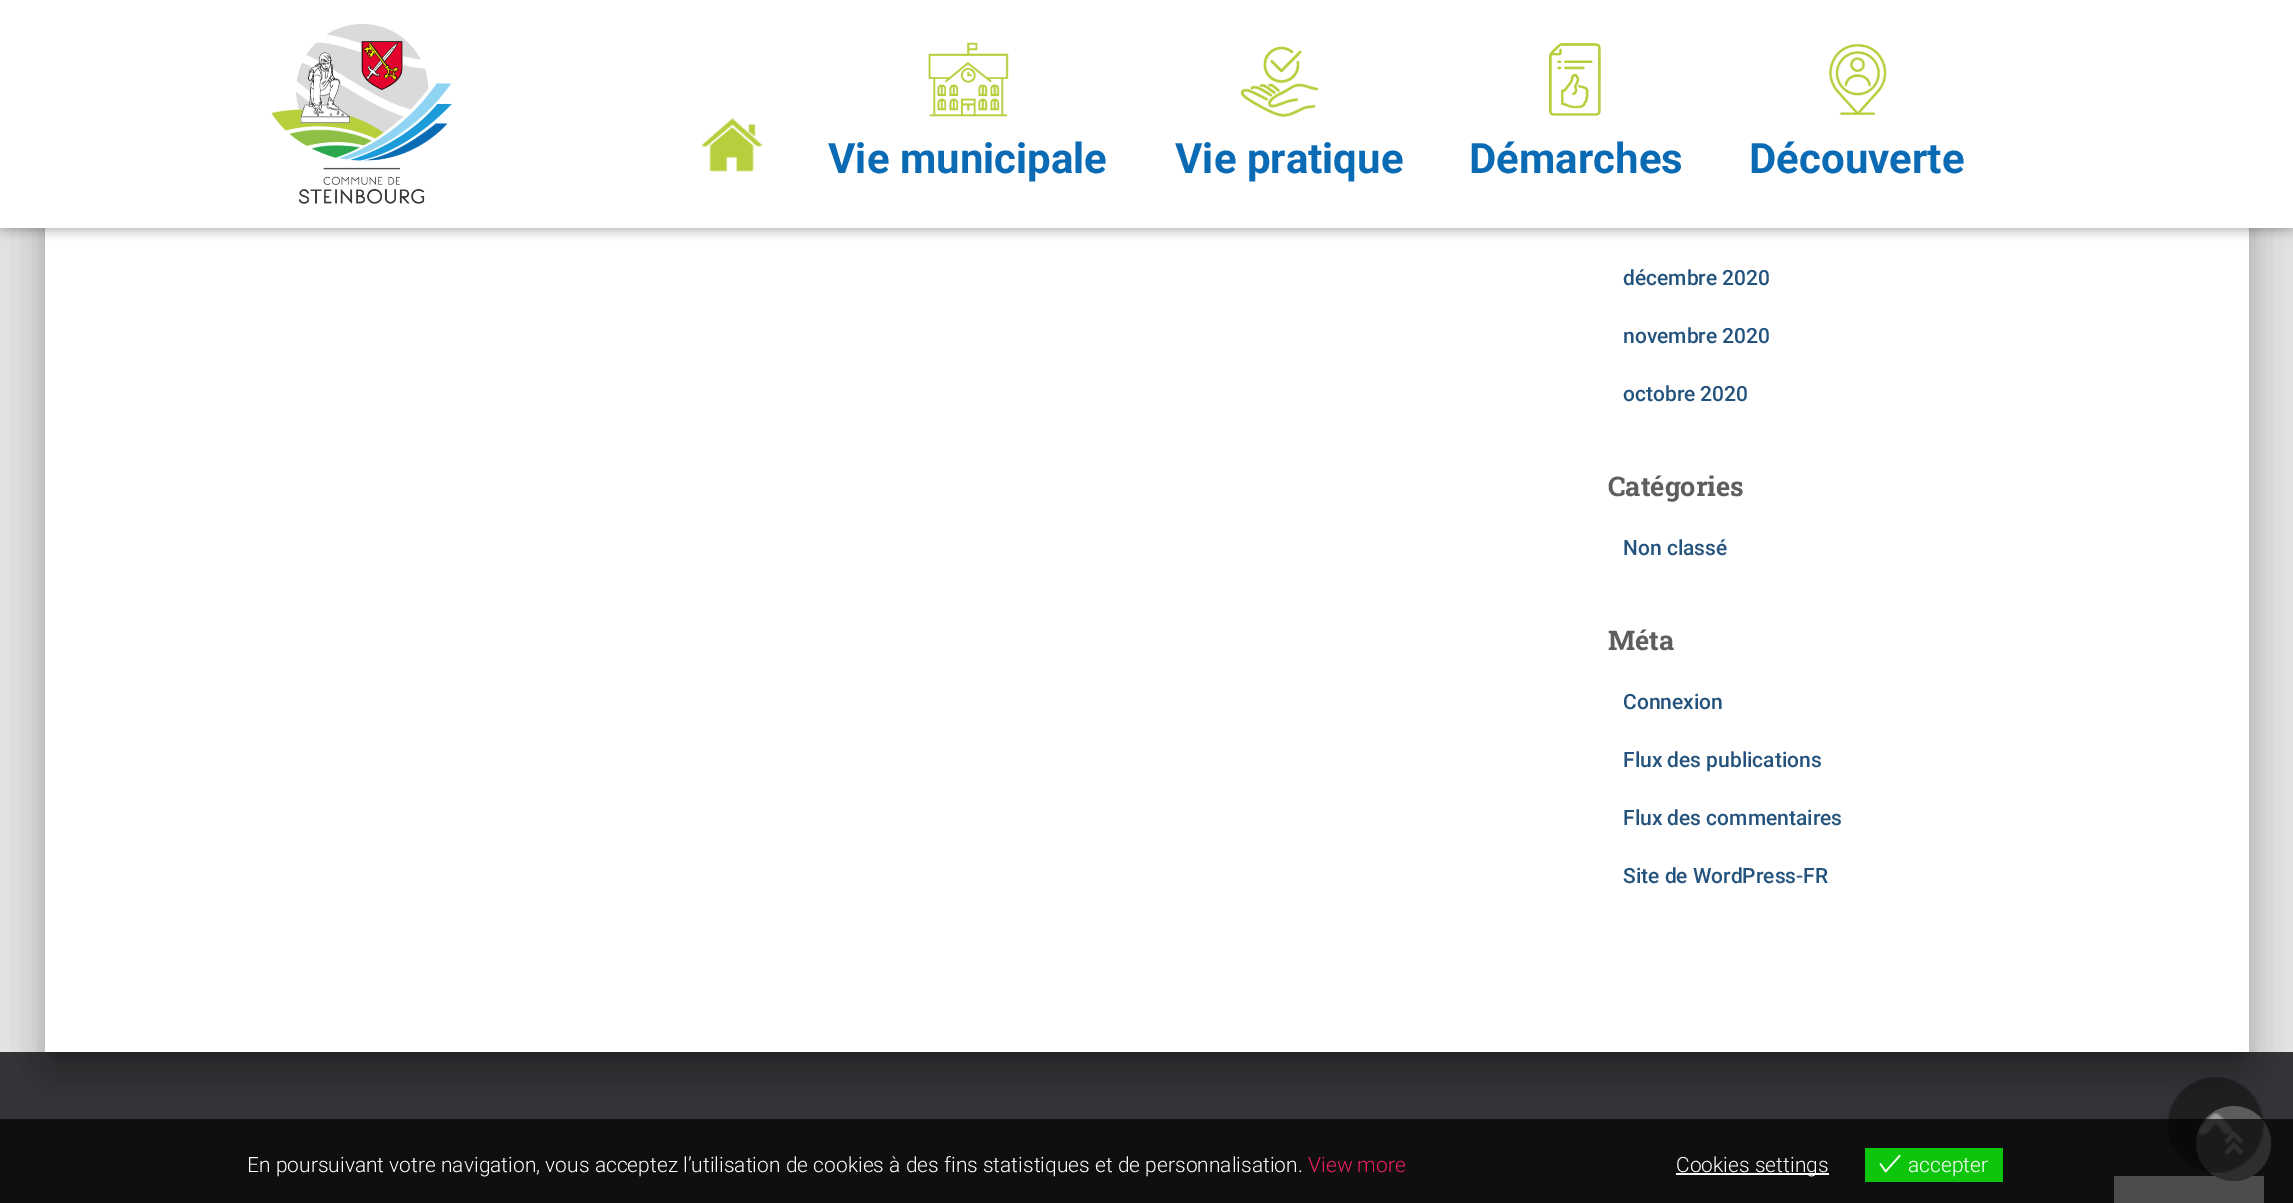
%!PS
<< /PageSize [2293 1203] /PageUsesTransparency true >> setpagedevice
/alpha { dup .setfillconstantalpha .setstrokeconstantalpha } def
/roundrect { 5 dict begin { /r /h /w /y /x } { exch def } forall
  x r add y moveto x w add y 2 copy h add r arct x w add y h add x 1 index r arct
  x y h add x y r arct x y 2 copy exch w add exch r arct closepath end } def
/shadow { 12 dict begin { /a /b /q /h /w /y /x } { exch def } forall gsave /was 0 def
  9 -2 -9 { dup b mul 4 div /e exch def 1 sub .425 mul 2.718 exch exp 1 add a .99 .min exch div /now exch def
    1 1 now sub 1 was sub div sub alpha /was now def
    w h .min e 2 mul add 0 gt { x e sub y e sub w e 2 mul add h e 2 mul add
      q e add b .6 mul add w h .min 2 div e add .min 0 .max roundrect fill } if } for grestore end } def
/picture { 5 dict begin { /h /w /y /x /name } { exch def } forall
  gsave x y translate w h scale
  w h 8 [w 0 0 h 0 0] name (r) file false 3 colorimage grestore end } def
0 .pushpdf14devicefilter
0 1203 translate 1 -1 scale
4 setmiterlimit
0.898 setgray
0 0 2293 1203 rectfill
0.196 0.204 0.216 setrgbcolor
0 1052 2293 151 rectfill
0 setgray
53 -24 2188 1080 1.5 7.5 0.2 shadow
38 -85 2218 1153 17 22.5 0.12 shadow
42 -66 2210 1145 12 18 0.14 shadow
1 setgray
45 228 2204 824 rectfill
0 setgray
3 9 2288 222 0 4 0.1 shadow
0 2 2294 228 0 7.5 0.12 shadow
9 11 2276 210 0 7.5 0.42 shadow
1 setgray
0 0 2293 228 rectfill
(img1.rgb) 271 24 181 180 picture
(img2.rgb) 702 118 61 54 picture
(img3.rgb) 928 42 81 75 picture
/Roboto-Bold [42 0 0 -42 0 0] selectfont
0.039 0.42 0.706 setrgbcolor
828 173 moveto (Vie municipale) show
(img4.rgb) 1240 46 79 71 picture
1175 173 moveto (Vie pratique) show
(img5.rgb) 1549 43 52 73 picture
1469 173 moveto (Démarches) show
(img6.rgb) 1829 44 58 71 picture
1749 173 moveto (Découverte) show
/Roboto-Medium [21 0 0 -21 0 0] selectfont
0.137 0.322 0.486 setrgbcolor
1623 285 moveto (décembre 2020) show
1623 343 moveto (novembre 2020) show
1623 401 moveto (octobre 2020) show
/RobotoSlab-Bold [27 0 0 -27 0 0] selectfont
0.369 setgray
1608 496 moveto (Catégories) show
/Roboto-Medium [21 0 0 -21 0 0] selectfont
0.137 0.322 0.486 setrgbcolor
1623 555 moveto (Non classé) show
/RobotoSlab-Bold [27 0 0 -27 0 0] selectfont
0.369 setgray
1608 650 moveto (Méta) show
/Roboto-Medium [21 0 0 -21 0 0] selectfont
0.137 0.322 0.486 setrgbcolor
1623 709 moveto (Connexion) show
1623 767 moveto (Flux des publications) show
1623 825 moveto (Flux des commentaires) show
1623 883 moveto (Site de WordPress-FR) show
1 setgray
2114 1176 150 27 rectfill
0.6 setgray
newpath 2233.5 1143.5 37.5 0 360 arc closepath fill
(img9.rgb) 2225 1131 18 24 picture
(img7.rgb) 2167 1077 97 96 picture
0.7 alpha
0 setgray
0 1119 2293 84 rectfill
/Roboto-Light [21 0 0 -21 0 0] selectfont
1 alpha
1 setgray
247 1172 moveto (En poursuivant votre navigation, vous acceptez l’utilisation de cookies à des fins statistiques et de personnalisation.) show
0.914 0.118 0.388 setrgbcolor
1308 1172 moveto (View more) show
1 setgray
1676 1173 153 2 rectfill
1676 1172 moveto (Cookies settings) show
0.055 0.773 0.055 setrgbcolor
1865 1148 138 34 rectfill
(img8.rgb) 1879 1154 22 19 picture
1 setgray
1908 1172 moveto (accepter) show
.poppdf14devicefilter showpage
